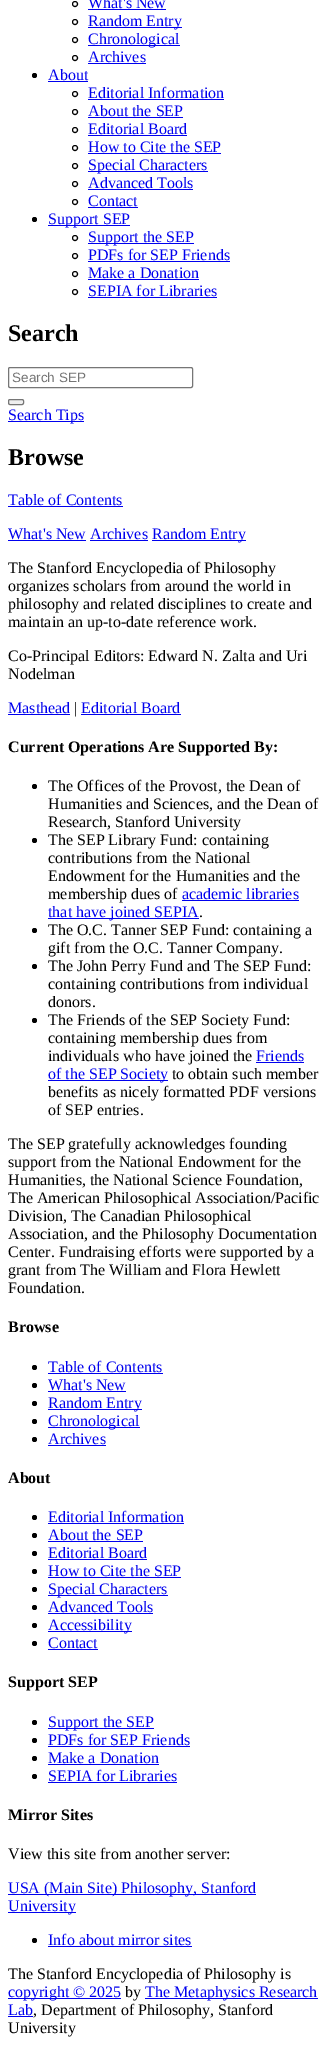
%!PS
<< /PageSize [328 2055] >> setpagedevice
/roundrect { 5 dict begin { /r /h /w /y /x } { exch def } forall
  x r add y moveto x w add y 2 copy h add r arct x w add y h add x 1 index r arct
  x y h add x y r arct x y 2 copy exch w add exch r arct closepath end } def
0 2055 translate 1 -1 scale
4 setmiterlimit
1 setgray
0 0 328 2055 rectfill
0 setgray
newpath 75 4 2.5 0 360 arc closepath stroke
/LiberationSerif-Regular [16 0 0 -16 0 0] selectfont
0 0 0.933 setrgbcolor
88 8 moveto (What's New) show
88 9 78 1 rectfill
0 setgray
newpath 75 22 2.5 0 360 arc closepath stroke
0 0 0.933 setrgbcolor
88 27 94 1 rectfill
88 26 moveto (Random Entry) show
0 setgray
newpath 75 40 2.5 0 360 arc closepath stroke
0 0 0.933 setrgbcolor
88 45 92 1 rectfill
88 44 moveto (Chronological) show
0 setgray
newpath 75 58 2.5 0 360 arc closepath stroke
0 0 0.933 setrgbcolor
88 62 moveto (Archives) show
88 63 58 1 rectfill
0 setgray
newpath 34.5 75.5 2.5 0 360 arc closepath fill
0 0 0.933 setrgbcolor
48 80 moveto (About) show
48 81 40 1 rectfill
0 setgray
newpath 75 94 2.5 0 360 arc closepath stroke
0 0 0.933 setrgbcolor
88 98 moveto (Editorial Information) show
88 99 136 1 rectfill
0 setgray
newpath 75 112 2.5 0 360 arc closepath stroke
0 0 0.933 setrgbcolor
88 116 moveto (About the SEP) show
88 117 95 1 rectfill
0 setgray
newpath 75 130 2.5 0 360 arc closepath stroke
0 0 0.933 setrgbcolor
88 134 moveto (Editorial Board) show
88 135 99 1 rectfill
0 setgray
newpath 75 148 2.5 0 360 arc closepath stroke
0 0 0.933 setrgbcolor
88 152 moveto (How to Cite the SEP) show
88 153 133 1 rectfill
0 setgray
newpath 75 166 2.5 0 360 arc closepath stroke
0 0 0.933 setrgbcolor
88 171 120 1 rectfill
88 170 moveto (Special Characters) show
0 setgray
newpath 75 184 2.5 0 360 arc closepath stroke
0 0 0.933 setrgbcolor
88 188 moveto (Advanced Tools) show
88 189 105 1 rectfill
0 setgray
newpath 75 202 2.5 0 360 arc closepath stroke
0 0 0.933 setrgbcolor
88 206 moveto (Contact) show
88 207 50 1 rectfill
0 setgray
newpath 34.5 219.5 2.5 0 360 arc closepath fill
0 0 0.933 setrgbcolor
48 225 82 1 rectfill
48 224 moveto (Support SEP) show
0 setgray
newpath 75 238 2.5 0 360 arc closepath stroke
0 0 0.933 setrgbcolor
88 243 106 1 rectfill
88 242 moveto (Support the SEP) show
0 setgray
newpath 75 256 2.5 0 360 arc closepath stroke
0 0 0.933 setrgbcolor
88 260 moveto (PDFs for SEP Friends) show
88 261 142 1 rectfill
0 setgray
newpath 75 274 2.5 0 360 arc closepath stroke
0 0 0.933 setrgbcolor
88 278 moveto (Make a Donation) show
88 279 111 1 rectfill
0 setgray
newpath 75 292 2.5 0 360 arc closepath stroke
0 0 0.933 setrgbcolor
88 296 moveto (SEPIA for Libraries) show
88 297 129 1 rectfill
/LiberationSerif-Bold [24 0 0 -24 0 0] selectfont
0 setgray
8 341 moveto (Search) show
0.463 setgray
8.5 367.5 184 20 1.5 roundrect stroke
/LiberationSans-Regular [13.5 0 0 -13.5 0 0] selectfont
0.459 setgray
12 382 moveto (Search SEP) show
0.937 setgray
8.5 399.5 15 5 1.5 roundrect gsave fill grestore
0.463 setgray
stroke
0 0 0.933 setrgbcolor
8 421 76 1 rectfill
/LiberationSerif-Regular [16 0 0 -16 0 0] selectfont
8 420 moveto (Search Tips) show
/LiberationSerif-Bold [24 0 0 -24 0 0] selectfont
0 setgray
8 465 moveto (Browse) show
/LiberationSerif-Regular [16 0 0 -16 0 0] selectfont
0 0 0.933 setrgbcolor
8 505 moveto (Table of Contents) show
8 506 115 1 rectfill
8 539 moveto (What's New Archives) show
8 540 78 1 rectfill
152 540 94 1 rectfill
152 539 moveto (Random Entry) show
90 540 58 1 rectfill
0 setgray
8 573 moveto (The Stanford Encyclopedia of Philosophy) show
8 591 moveto (organizes scholars from around the world in) show
8 609 moveto (philosophy and related disciplines to create and) show
8 627 moveto (maintain an up-to-date reference work.) show
8 661 moveto (Co-Principal Editors: Edward N. Zalta and Uri) show
8 679 moveto (Nodelman) show
0 0 0.933 setrgbcolor
8 713 moveto (Masthead) show
8 714 62 1 rectfill
0 setgray
74 713 moveto (|) show
0 0 0.933 setrgbcolor
81 713 moveto (Editorial Board) show
81 714 100 1 rectfill
/LiberationSerif-Bold [16 0 0 -16 0 0] selectfont
0 setgray
8 752 moveto (Current Operations Are Supported By:) show
newpath 34.5 786.5 2.5 0 360 arc closepath fill
/LiberationSerif-Regular [16 0 0 -16 0 0] selectfont
48 791 moveto (The Offices of the Provost, the Dean of) show
48 809 moveto (Humanities and Sciences, and the Dean of) show
48 827 moveto (Research, Stanford University) show
newpath 34.5 840.5 2.5 0 360 arc closepath fill
48 845 moveto (The SEP Library Fund: containing) show
48 863 moveto (contributions from the National) show
48 881 moveto (Endowment for the Humanities and the) show
48 899 moveto (membership dues of) show
0 0 0.933 setrgbcolor
182 899 moveto (academic libraries) show
182 900 117 1 rectfill
48 918 151 1 rectfill
48 917 moveto (that have joined SEPIA) show
0 setgray
199 917 moveto (.) show
newpath 34.5 930.5 2.5 0 360 arc closepath fill
48 935 moveto (The O.C. Tanner SEP Fund: containing a) show
48 953 moveto (gift from the O.C. Tanner Company.) show
newpath 34.5 966.5 2.5 0 360 arc closepath fill
48 971 moveto (The John Perry Fund and The SEP Fund:) show
48 989 moveto (containing contributions from individual) show
48 1007 moveto (donors.) show
newpath 34.5 1020.5 2.5 0 360 arc closepath fill
48 1025 moveto (The Friends of the SEP Society Fund:) show
48 1043 moveto (containing membership dues from) show
48 1061 moveto (individuals who have joined the) show
0 0 0.933 setrgbcolor
256 1061 moveto (Friends) show
256 1062 48 1 rectfill
48 1080 120 1 rectfill
48 1079 moveto (of the SEP Society) show
0 setgray
172 1079 moveto (to obtain such member) show
48 1097 moveto (benefits as nicely formatted PDF versions) show
48 1115 moveto (of SEP entries.) show
8 1149 moveto (The SEP gratefully acknowledges founding) show
8 1167 moveto (support from the National Endowment for the) show
8 1185 moveto (Humanities, the National Science Foundation,) show
8 1203 moveto (The American Philosophical Association/Pacific) show
8 1221 moveto (Division, The Canadian Philosophical) show
8 1239 moveto (Association, and the Philosophy Documentation) show
8 1257 moveto (Center. Fundraising efforts were supported by a) show
8 1275 moveto (grant from The William and Flora Hewlett) show
8 1293 moveto (Foundation.) show
/LiberationSerif-Bold [16 0 0 -16 0 0] selectfont
8 1332 moveto (Browse) show
newpath 34.5 1367.5 2.5 0 360 arc closepath fill
/LiberationSerif-Regular [16 0 0 -16 0 0] selectfont
0 0 0.933 setrgbcolor
48 1372 moveto (Table of Contents) show
48 1373 115 1 rectfill
0 setgray
newpath 34.5 1385.5 2.5 0 360 arc closepath fill
0 0 0.933 setrgbcolor
48 1390 moveto (What's New) show
48 1391 78 1 rectfill
0 setgray
newpath 34.5 1403.5 2.5 0 360 arc closepath fill
0 0 0.933 setrgbcolor
48 1409 94 1 rectfill
48 1408 moveto (Random Entry) show
0 setgray
newpath 34.5 1421.5 2.5 0 360 arc closepath fill
0 0 0.933 setrgbcolor
48 1427 92 1 rectfill
48 1426 moveto (Chronological) show
0 setgray
newpath 34.5 1439.5 2.5 0 360 arc closepath fill
0 0 0.933 setrgbcolor
48 1444 moveto (Archives) show
48 1445 58 1 rectfill
/LiberationSerif-Bold [16 0 0 -16 0 0] selectfont
0 setgray
8 1483 moveto (About) show
newpath 34.5 1517.5 2.5 0 360 arc closepath fill
/LiberationSerif-Regular [16 0 0 -16 0 0] selectfont
0 0 0.933 setrgbcolor
48 1522 moveto (Editorial Information) show
48 1523 136 1 rectfill
0 setgray
newpath 34.5 1535.5 2.5 0 360 arc closepath fill
0 0 0.933 setrgbcolor
48 1540 moveto (About the SEP) show
48 1541 95 1 rectfill
0 setgray
newpath 34.5 1553.5 2.5 0 360 arc closepath fill
0 0 0.933 setrgbcolor
48 1558 moveto (Editorial Board) show
48 1559 99 1 rectfill
0 setgray
newpath 34.5 1571.5 2.5 0 360 arc closepath fill
0 0 0.933 setrgbcolor
48 1576 moveto (How to Cite the SEP) show
48 1577 133 1 rectfill
0 setgray
newpath 34.5 1589.5 2.5 0 360 arc closepath fill
0 0 0.933 setrgbcolor
48 1595 120 1 rectfill
48 1594 moveto (Special Characters) show
0 setgray
newpath 34.5 1607.5 2.5 0 360 arc closepath fill
0 0 0.933 setrgbcolor
48 1612 moveto (Advanced Tools) show
48 1613 105 1 rectfill
0 setgray
newpath 34.5 1625.5 2.5 0 360 arc closepath fill
0 0 0.933 setrgbcolor
48 1631 84 1 rectfill
48 1630 moveto (Accessibility) show
0 setgray
newpath 34.5 1643.5 2.5 0 360 arc closepath fill
0 0 0.933 setrgbcolor
48 1648 moveto (Contact) show
48 1649 50 1 rectfill
/LiberationSerif-Bold [16 0 0 -16 0 0] selectfont
0 setgray
8 1687 moveto (Support SEP) show
newpath 34.5 1722.5 2.5 0 360 arc closepath fill
0 0 0.933 setrgbcolor
48 1728 106 1 rectfill
/LiberationSerif-Regular [16 0 0 -16 0 0] selectfont
48 1727 moveto (Support the SEP) show
0 setgray
newpath 34.5 1740.5 2.5 0 360 arc closepath fill
0 0 0.933 setrgbcolor
48 1745 moveto (PDFs for SEP Friends) show
48 1746 142 1 rectfill
0 setgray
newpath 34.5 1758.5 2.5 0 360 arc closepath fill
0 0 0.933 setrgbcolor
48 1763 moveto (Make a Donation) show
48 1764 111 1 rectfill
0 setgray
newpath 34.5 1776.5 2.5 0 360 arc closepath fill
0 0 0.933 setrgbcolor
48 1781 moveto (SEPIA for Libraries) show
48 1782 129 1 rectfill
/LiberationSerif-Bold [16 0 0 -16 0 0] selectfont
0 setgray
8 1820 moveto (Mirror Sites) show
/LiberationSerif-Regular [16 0 0 -16 0 0] selectfont
8 1859 moveto (View this site from another server:) show
0 0 0.933 setrgbcolor
8 1894 248 1 rectfill
8 1893 moveto (USA \(Main Site\) Philosophy, Stanford) show
8 1912 68 1 rectfill
8 1911 moveto (University) show
0 setgray
newpath 34.5 1940.5 2.5 0 360 arc closepath fill
0 0 0.933 setrgbcolor
48 1945 moveto (Info about mirror sites) show
48 1946 144 1 rectfill
0 setgray
8 1979 moveto (The Stanford Encyclopedia of Philosophy is) show
0 0 0.933 setrgbcolor
8 1998 113 1 rectfill
8 1997 moveto (copyright © 2025) show
0 setgray
125 1997 moveto (by) show
0 0 0.933 setrgbcolor
145 1998 173 1 rectfill
145 1997 moveto (The Metaphysics Research) show
8 2015 moveto (Lab) show
8 2016 25 1 rectfill
0 setgray
33 2015 moveto (, Department of Philosophy, Stanford) show
8 2033 moveto (University) show
showpage
